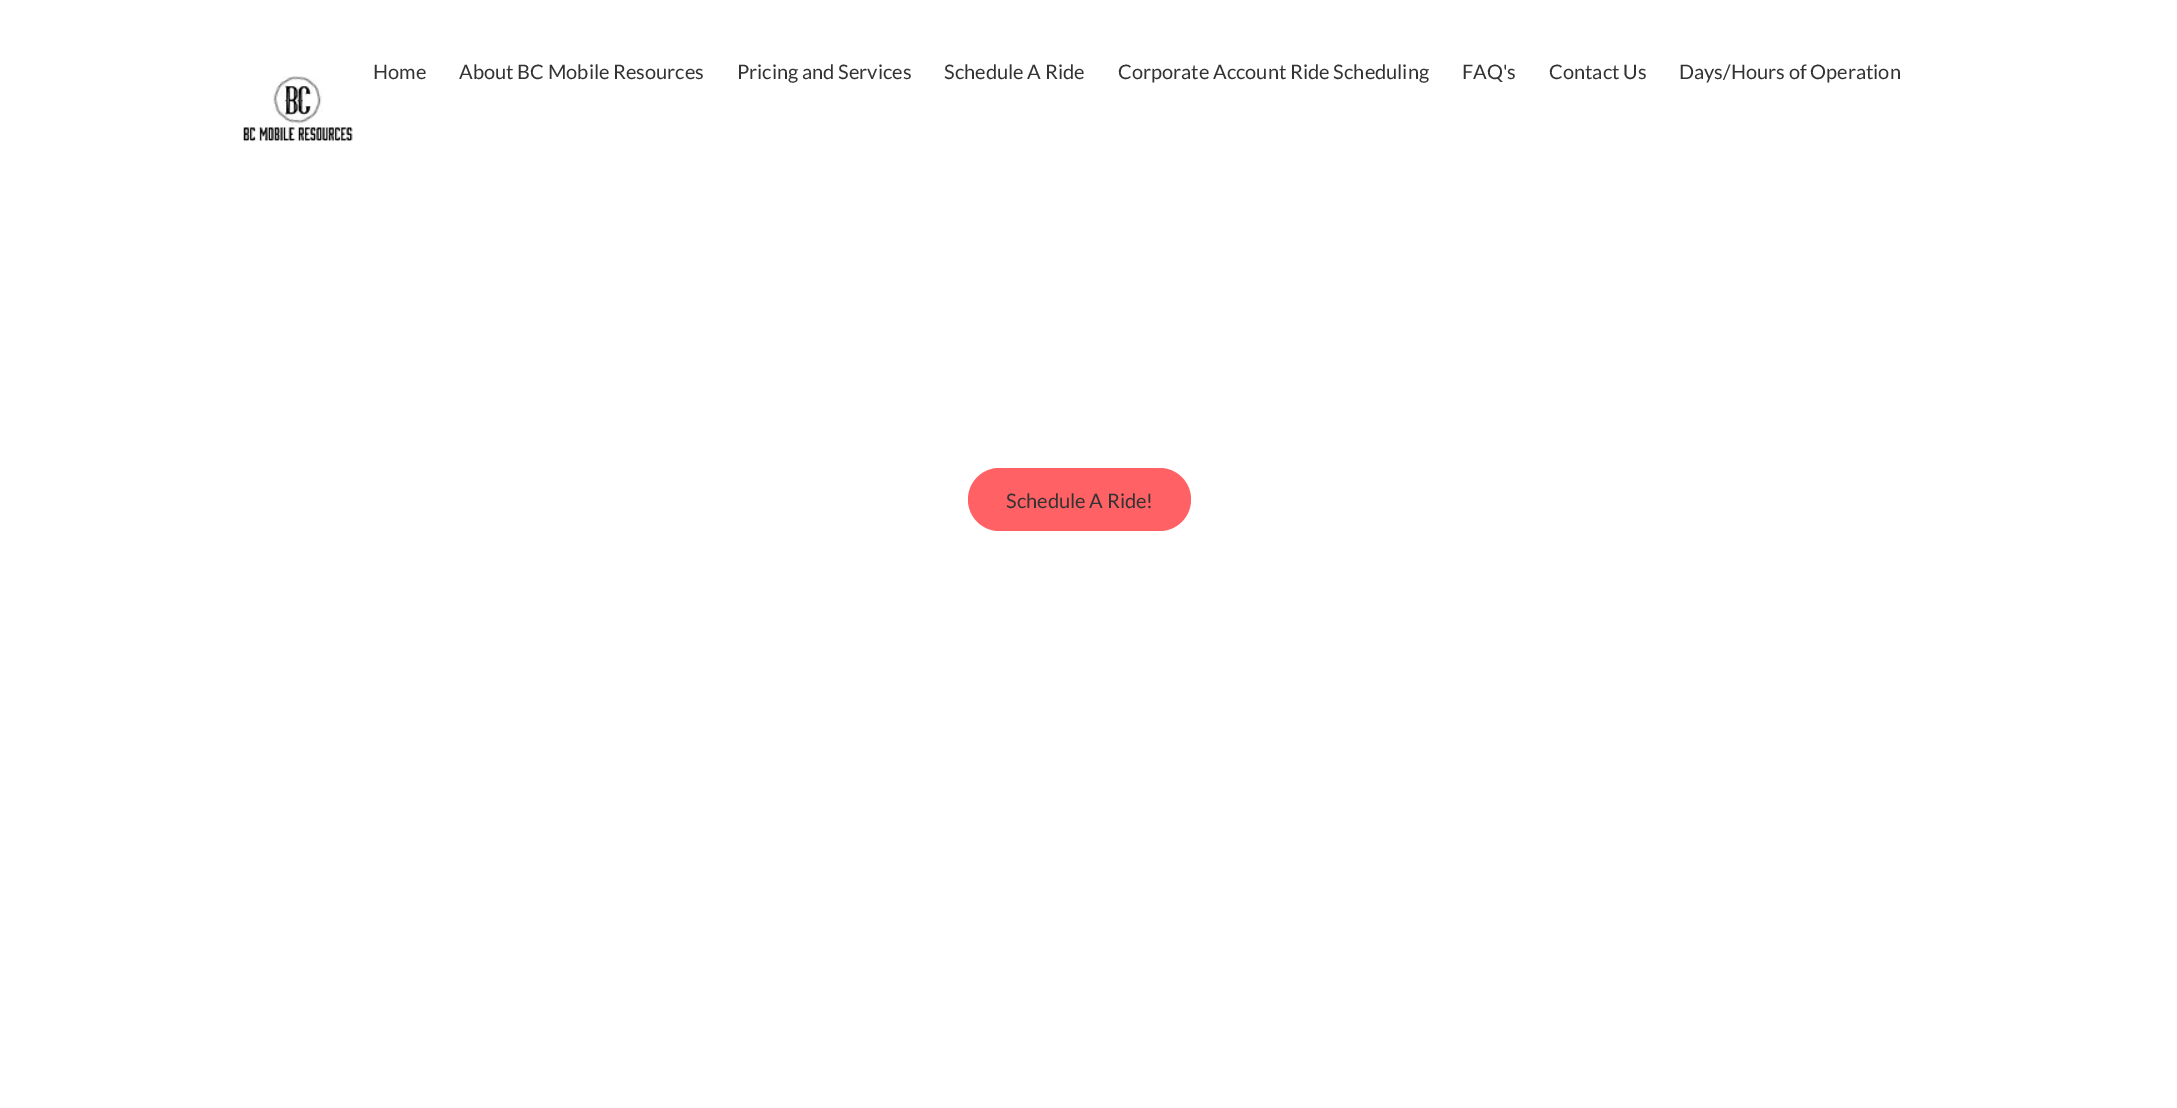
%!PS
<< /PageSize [2177 1108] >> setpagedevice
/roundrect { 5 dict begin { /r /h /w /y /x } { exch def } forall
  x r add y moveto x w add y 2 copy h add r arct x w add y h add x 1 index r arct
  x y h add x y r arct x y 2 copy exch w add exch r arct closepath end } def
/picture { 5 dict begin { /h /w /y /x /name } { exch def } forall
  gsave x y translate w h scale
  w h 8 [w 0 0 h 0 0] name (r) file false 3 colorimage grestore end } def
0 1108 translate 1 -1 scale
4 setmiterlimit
1 setgray
0 0 2177 1108 rectfill
/Lato-Regular [20 0 0 -20 0 0] selectfont
0.2 setgray
373 79 moveto (Home) show
459 79 moveto (About BC Mobile Resources) show
737 79 moveto (Pricing and Services) show
944 79 moveto (Schedule A Ride) show
1118 79 moveto (Corporate Account Ride Scheduling) show
1462 79 moveto (FAQ's) show
1549 79 moveto (Contact Us) show
1679 79 moveto (Days/Hours of Operation) show
(img1.rgb) 243 76 110 66 picture
1 0.38 0.396 setrgbcolor
968 468 223 63 31.5 roundrect fill
0.2 setgray
1006 508 moveto (Schedule A Ride!) show
showpage
